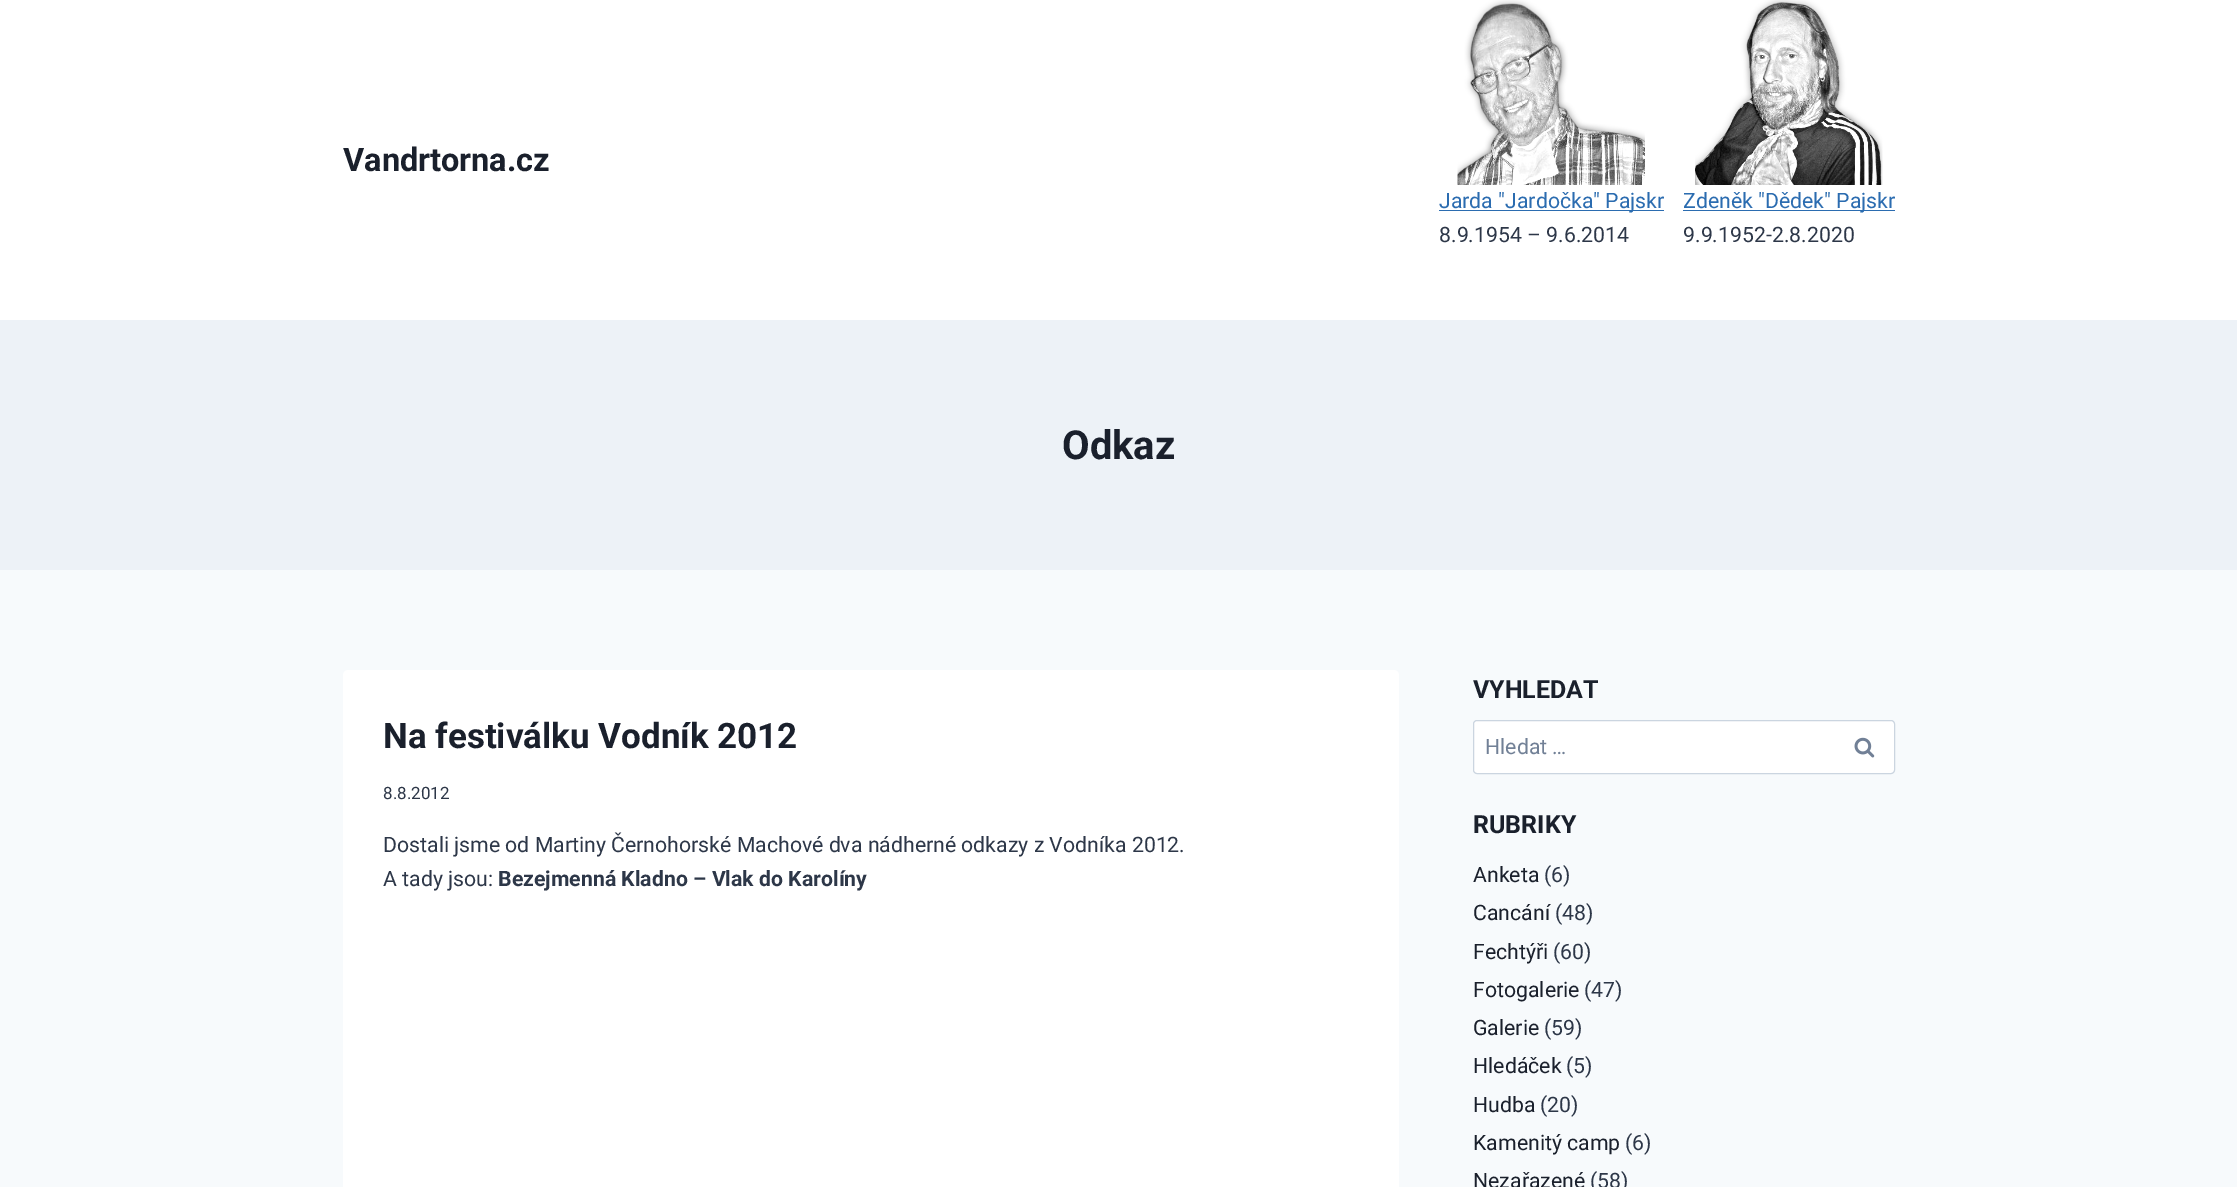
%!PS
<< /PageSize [2237 1187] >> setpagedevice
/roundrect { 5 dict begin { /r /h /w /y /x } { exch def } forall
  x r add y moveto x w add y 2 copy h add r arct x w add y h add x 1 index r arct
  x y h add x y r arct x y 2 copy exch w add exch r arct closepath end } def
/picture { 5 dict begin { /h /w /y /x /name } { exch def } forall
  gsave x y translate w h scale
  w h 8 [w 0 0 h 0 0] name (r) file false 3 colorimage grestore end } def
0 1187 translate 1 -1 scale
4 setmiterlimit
0.969 0.98 0.988 setrgbcolor
0 0 2237 1187 rectfill
1 setgray
0 0 2237 320 rectfill
/Roboto-Bold [32.5 0 0 -32.5 0 0] selectfont
0.102 0.125 0.173 setrgbcolor
343 171 moveto (Vandrtorna.cz) show
(img1.rgb) 1457 0 188 185 picture
0.169 0.424 0.69 setrgbcolor
1439 210 225 1 rectfill
/Roboto-Regular [21.25 0 0 -21.25 0 0] selectfont
1439 208 moveto (Jarda "Jardočka" Pajskr) show
0.176 0.216 0.282 setrgbcolor
1439 242 moveto (8.9.1954 – 9.6.2014) show
(img2.rgb) 1695 0 188 185 picture
0.169 0.424 0.69 setrgbcolor
1683 210 212 1 rectfill
1683 208 moveto (Zdeněk "Dědek" Pajskr) show
0.176 0.216 0.282 setrgbcolor
1683 242 moveto (9.9.1952-2.8.2020) show
0.929 0.949 0.969 setrgbcolor
0 320 2237 250 rectfill
/Roboto-Bold [40 0 0 -40 0 0] selectfont
0.102 0.125 0.173 setrgbcolor
1062 459 moveto (Odkaz) show
1 setgray
343 670 1056 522 5 roundrect fill
/Roboto-Bold [35 0 0 -35 0 0] selectfont
0.102 0.125 0.173 setrgbcolor
383 748 moveto (Na festiválku Vodník 2012) show
/Roboto-Regular [17 0 0 -17 0 0] selectfont
0.176 0.216 0.282 setrgbcolor
383 799 moveto (8.8.2012) show
/Roboto-Regular [21.25 0 0 -21.25 0 0] selectfont
383 852 moveto (Dostali jsme od Martiny Černohorské Machové dva nádherné odkazy z Vodníka 2012.) show
383 886 moveto (A tady jsou:) show
/Roboto-Bold [21.25 0 0 -21.25 0 0] selectfont
498 886 moveto (Bezejmenná Kladno – Vlak do Karolíny) show
/Roboto-Bold [25 0 0 -25 0 0] selectfont
0.102 0.125 0.173 setrgbcolor
1473 698 moveto (VYHLEDAT) show
1 setgray
1473.5 720.5 421 53 3.5 roundrect gsave fill grestore
0.796 0.835 0.878 setrgbcolor
stroke
/Roboto-Regular [21.25 0 0 -21.25 0 0] selectfont
0.443 0.502 0.588 setrgbcolor
1485 754 moveto (Hledat …) show
(img3.rgb) 1854 737 21 21 picture
/Roboto-Bold [25 0 0 -25 0 0] selectfont
0.102 0.125 0.173 setrgbcolor
1473 833 moveto (RUBRIKY) show
/Roboto-Regular [21.25 0 0 -21.25 0 0] selectfont
1473 882 moveto (Anketa) show
0.176 0.216 0.282 setrgbcolor
1544 882 moveto (\(6\)) show
0.102 0.125 0.173 setrgbcolor
1473 920 moveto (Cancání) show
0.176 0.216 0.282 setrgbcolor
1555 920 moveto (\(48\)) show
0.102 0.125 0.173 setrgbcolor
1473 959 moveto (Fechtýři) show
0.176 0.216 0.282 setrgbcolor
1553 959 moveto (\(60\)) show
0.102 0.125 0.173 setrgbcolor
1473 997 moveto (Fotogalerie) show
0.176 0.216 0.282 setrgbcolor
1584 997 moveto (\(47\)) show
0.102 0.125 0.173 setrgbcolor
1473 1035 moveto (Galerie) show
0.176 0.216 0.282 setrgbcolor
1544 1035 moveto (\(59\)) show
0.102 0.125 0.173 setrgbcolor
1473 1073 moveto (Hledáček) show
0.176 0.216 0.282 setrgbcolor
1566 1073 moveto (\(5\)) show
0.102 0.125 0.173 setrgbcolor
1473 1112 moveto (Hudba) show
0.176 0.216 0.282 setrgbcolor
1540 1112 moveto (\(20\)) show
0.102 0.125 0.173 setrgbcolor
1473 1150 moveto (Kamenitý camp) show
0.176 0.216 0.282 setrgbcolor
1625 1150 moveto (\(6\)) show
0.102 0.125 0.173 setrgbcolor
1473 1188 moveto (Nezařazené) show
0.176 0.216 0.282 setrgbcolor
1590 1188 moveto (\(58\)) show
showpage
